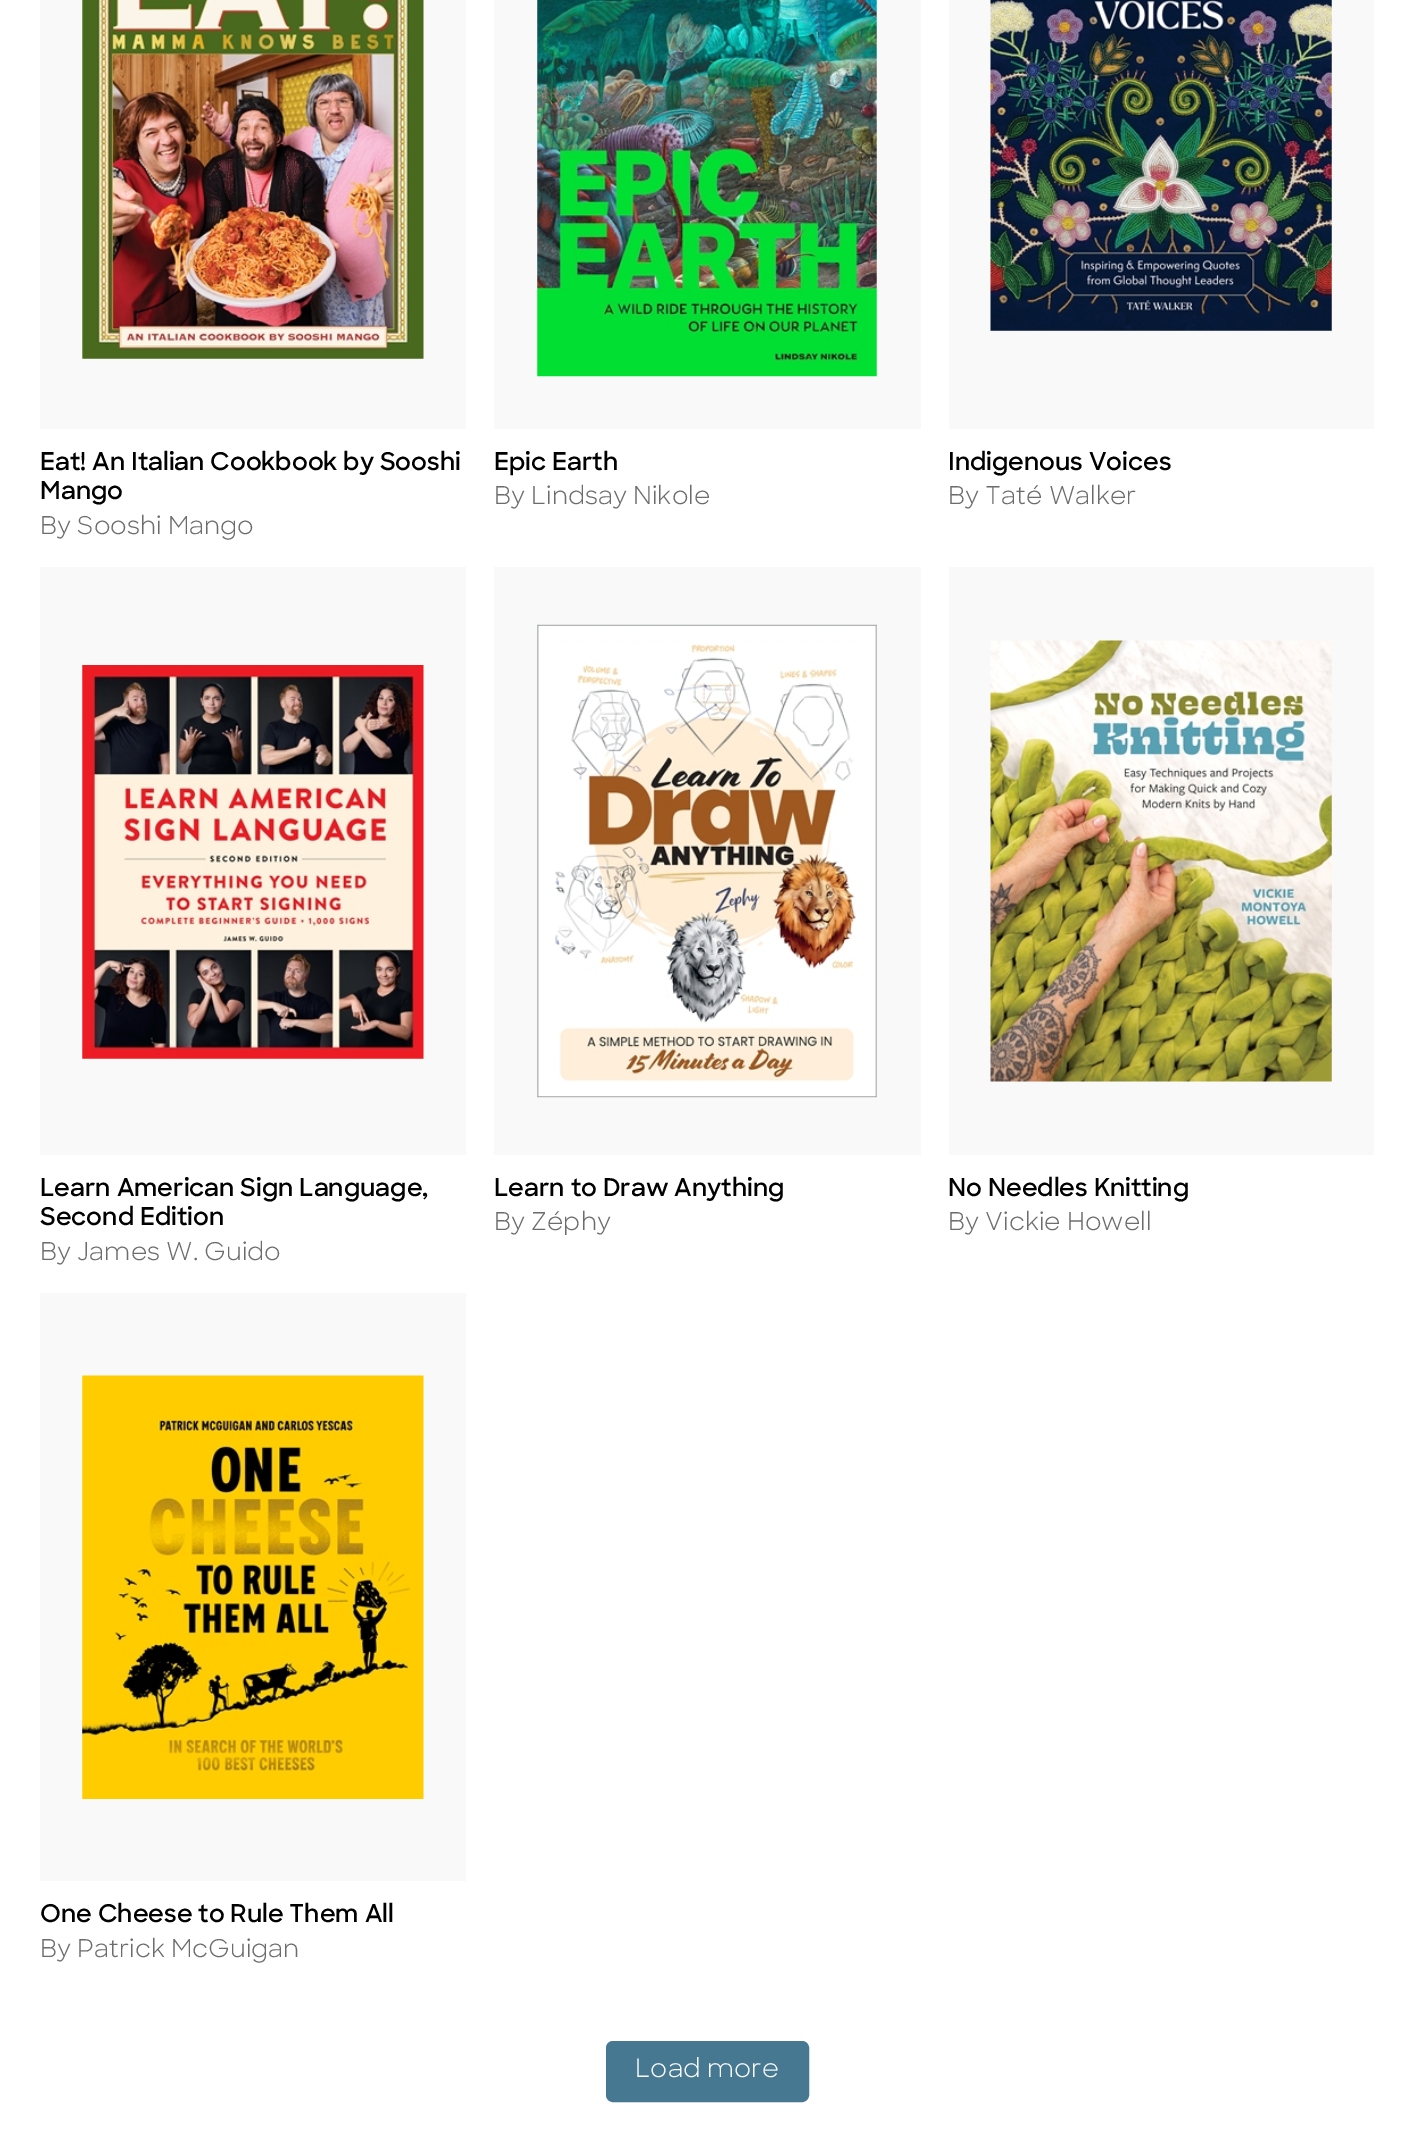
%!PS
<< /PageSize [1413 2138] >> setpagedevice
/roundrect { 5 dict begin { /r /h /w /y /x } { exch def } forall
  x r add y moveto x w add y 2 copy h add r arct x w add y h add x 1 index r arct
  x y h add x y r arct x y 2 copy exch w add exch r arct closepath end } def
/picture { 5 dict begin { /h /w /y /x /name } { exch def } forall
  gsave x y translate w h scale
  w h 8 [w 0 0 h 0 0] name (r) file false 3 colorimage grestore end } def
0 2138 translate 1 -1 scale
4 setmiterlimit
1 setgray
0 0 1413 2138 rectfill
0.976 setgray
40 0 426 429 rectfill
(img1.rgb) 82 0 342 359 picture
/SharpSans-SemiBold [24.5 0 0 -24.5 0 0] selectfont
0 setgray
40 470 moveto (Eat! An Italian Cookbook by Sooshi) show
40 499 moveto (Mango) show
/SharpSans-Regular [24.5 0 0 -24.5 0 0] selectfont
0.424 setgray
40 534 moveto (By Sooshi Mango) show
0.976 setgray
494 0 427 429 rectfill
(img2.rgb) 537 0 340 377 picture
/SharpSans-SemiBold [24.5 0 0 -24.5 0 0] selectfont
0 setgray
494 470 moveto (Epic Earth) show
/SharpSans-Regular [24.5 0 0 -24.5 0 0] selectfont
0.424 setgray
494 504 moveto (By Lindsay Nikole) show
0.976 setgray
949 0 425 429 rectfill
(img3.rgb) 990 0 342 331 picture
/SharpSans-SemiBold [24.5 0 0 -24.5 0 0] selectfont
0 setgray
948 470 moveto (Indigenous Voices) show
/SharpSans-Regular [24.5 0 0 -24.5 0 0] selectfont
0.424 setgray
948 504 moveto (By Taté Walker) show
0.976 setgray
40 567 426 588 rectfill
(img4.rgb) 82 665 342 394 picture
/SharpSans-SemiBold [24.5 0 0 -24.5 0 0] selectfont
0 setgray
40 1196 moveto (Learn American Sign Language,) show
40 1225 moveto (Second Edition) show
/SharpSans-Regular [24.5 0 0 -24.5 0 0] selectfont
0.424 setgray
40 1260 moveto (By James W. Guido) show
0.976 setgray
494 567 427 588 rectfill
(img5.rgb) 537 624 340 474 picture
/SharpSans-SemiBold [24.5 0 0 -24.5 0 0] selectfont
0 setgray
494 1196 moveto (Learn to Draw Anything) show
/SharpSans-Regular [24.5 0 0 -24.5 0 0] selectfont
0.424 setgray
494 1230 moveto (By Zéphy) show
0.976 setgray
949 567 425 588 rectfill
(img6.rgb) 990 640 342 442 picture
/SharpSans-SemiBold [24.5 0 0 -24.5 0 0] selectfont
0 setgray
948 1196 moveto (No Needles Knitting) show
/SharpSans-Regular [24.5 0 0 -24.5 0 0] selectfont
0.424 setgray
948 1230 moveto (By Vickie Howell) show
0.976 setgray
40 1293 426 588 rectfill
(img7.rgb) 82 1375 342 424 picture
/SharpSans-SemiBold [24.5 0 0 -24.5 0 0] selectfont
0 setgray
40 1922 moveto (One Cheese to Rule Them All) show
/SharpSans-Regular [24.5 0 0 -24.5 0 0] selectfont
0.424 setgray
40 1957 moveto (By Patrick McGuigan) show
0.275 0.475 0.569 setrgbcolor
607 2042 201 59 6 roundrect gsave fill grestore
2 setlinewidth
stroke
/SharpSans-Regular [25.25 0 0 -25.25 0 0] selectfont
0.976 setgray
635 2077 moveto (Load more) show
showpage
